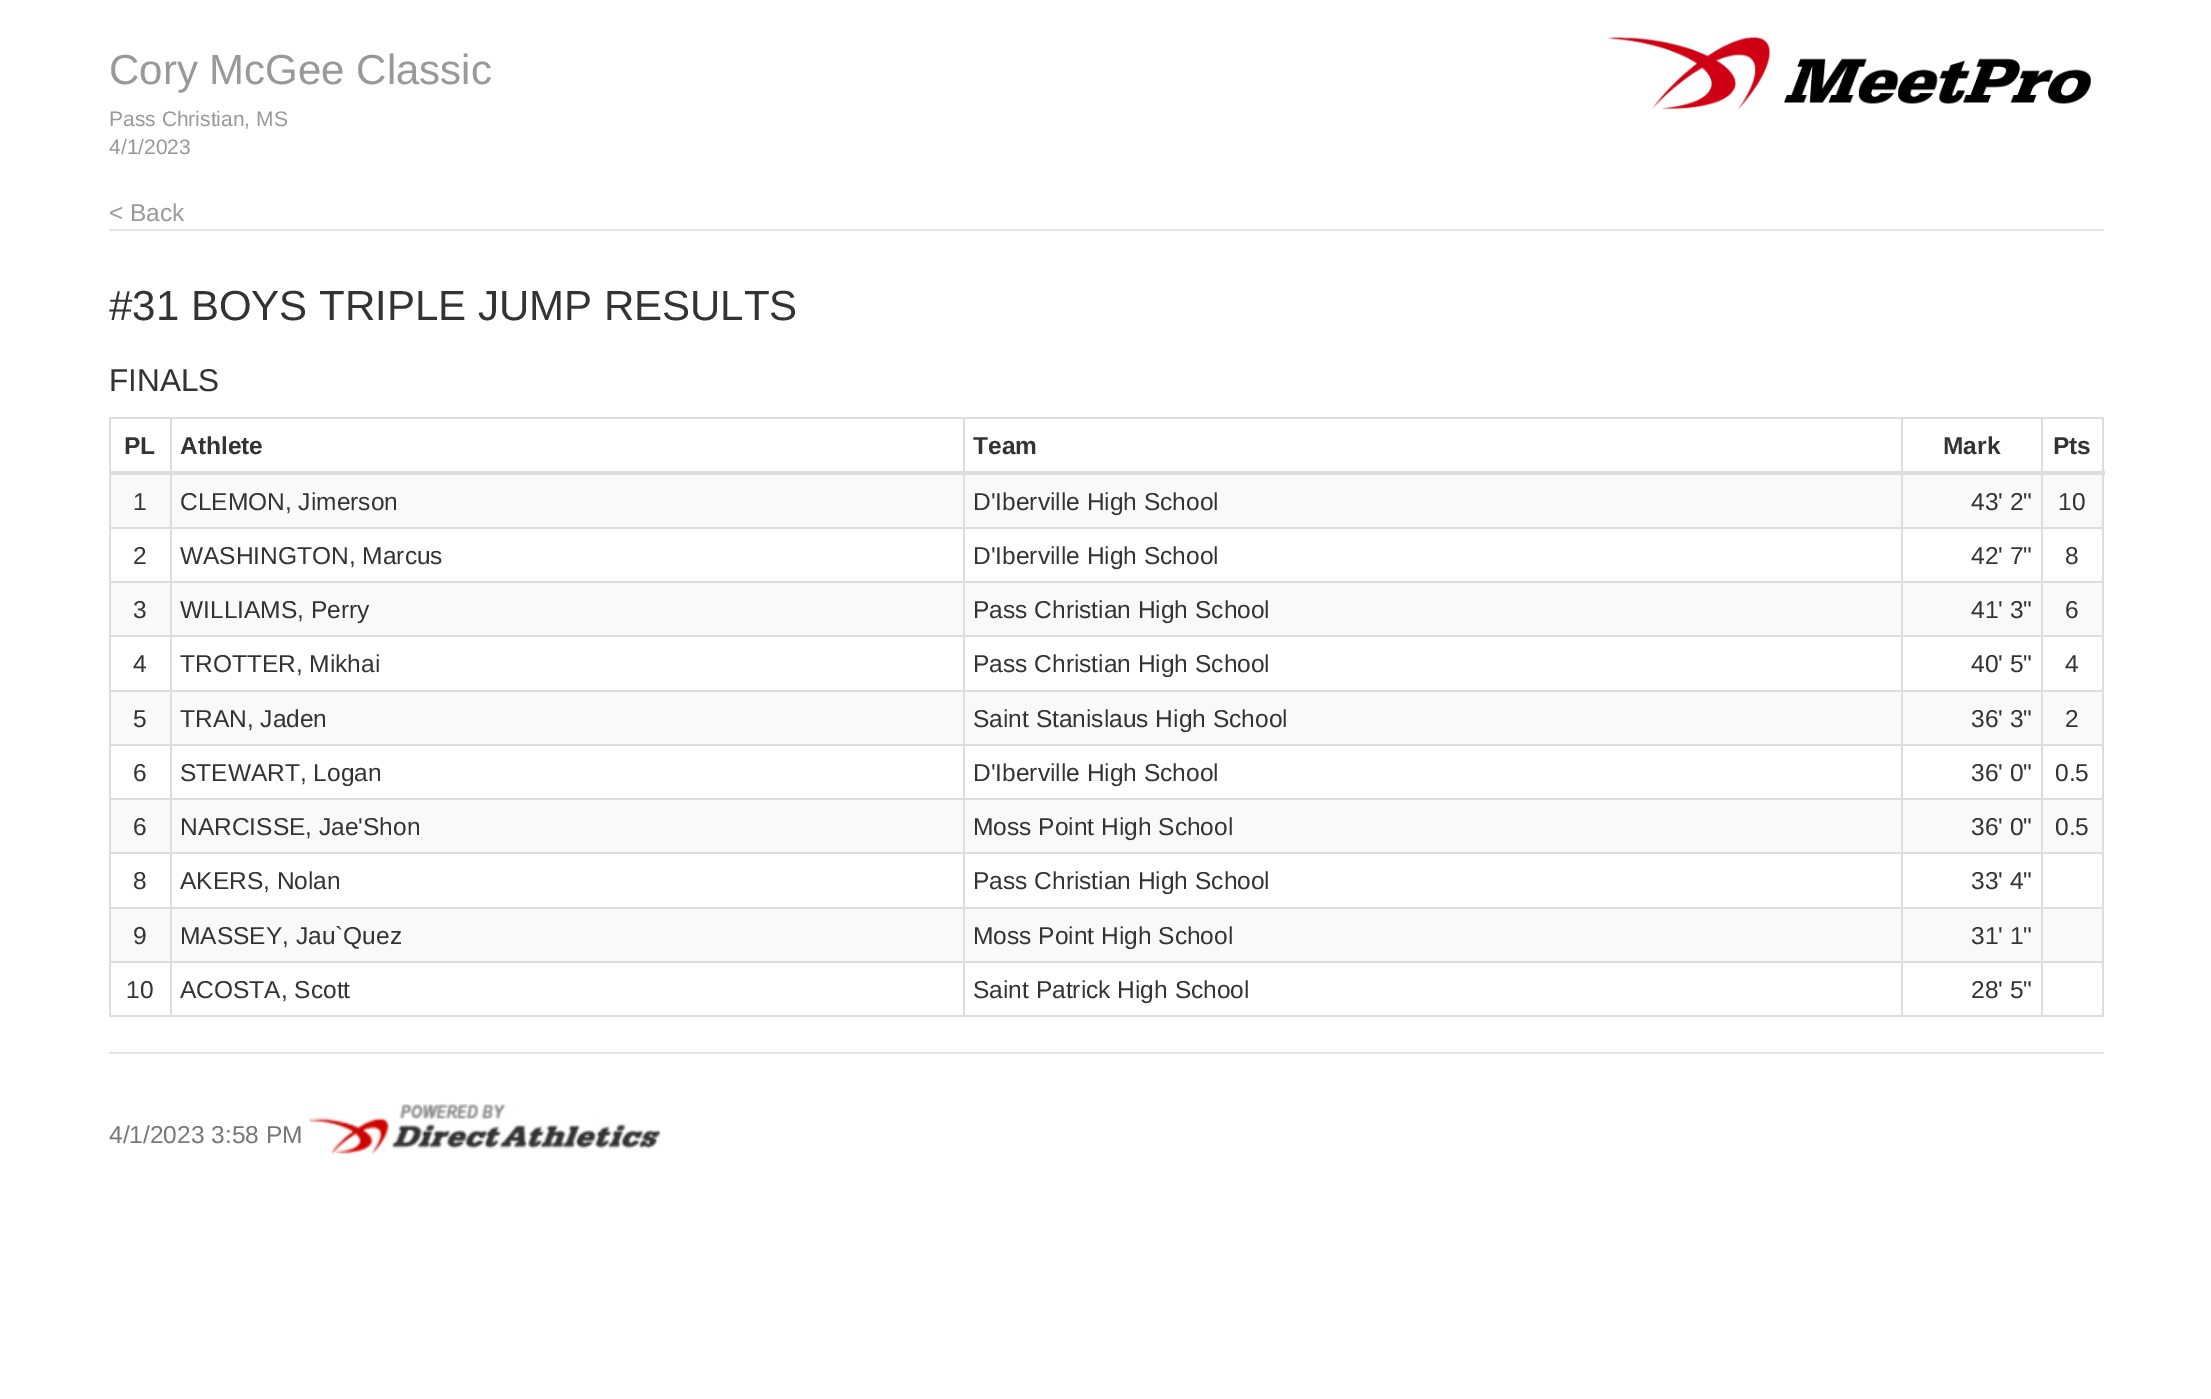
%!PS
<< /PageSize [2211 1399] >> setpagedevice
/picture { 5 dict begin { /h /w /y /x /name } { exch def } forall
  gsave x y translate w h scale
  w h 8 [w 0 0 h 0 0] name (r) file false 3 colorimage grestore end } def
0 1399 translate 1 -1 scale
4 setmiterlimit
1 setgray
0 0 2211 1399 rectfill
0.898 setgray
109 229 1995 2 rectfill
/LiberationSans-Regular [42 0 0 -42 0 0] selectfont
0.6 setgray
109 84 moveto (Cory McGee Classic) show
/LiberationSans-Regular [21 0 0 -21 0 0] selectfont
109 126 moveto (Pass Christian, MS) show
109 154 moveto (4/1/2023) show
(img1.rgb) 1605 37 486 73 picture
/LiberationSans-Regular [24.5 0 0 -24.5 0 0] selectfont
109 221 moveto (< Back) show
/LiberationSans-Regular [42 0 0 -42 0 0] selectfont
0.2 setgray
109 320 moveto (#31 BOYS TRIPLE JUMP RESULTS) show
/LiberationSans-Regular [31.5 0 0 -31.5 0 0] selectfont
109 391 moveto (FINALS) show
0.867 setgray
109 417 1995 2 rectfill
2102 417 2 600 rectfill
109 1015 1995 2 rectfill
109 417 2 600 rectfill
/LiberationSans-Bold [24.5 0 0 -24.5 0 0] selectfont
0.2 setgray
124 454 moveto (PL) show
180 454 moveto (Athlete) show
973 454 moveto (Team) show
1943 454 moveto (Mark) show
0.867 setgray
2041 527 63 2 rectfill
2041 581 63 2 rectfill
2041 635 63 2 rectfill
2041 690 63 2 rectfill
2041 744 63 2 rectfill
2041 798 63 2 rectfill
2041 852 63 2 rectfill
2041 907 63 2 rectfill
2041 961 63 2 rectfill
2041 961 2 56 rectfill
1901 961 141 2 rectfill
2041 907 2 56 rectfill
1901 907 141 2 rectfill
2041 852 2 56 rectfill
1901 852 141 2 rectfill
2041 798 2 56 rectfill
1901 798 141 2 rectfill
2041 744 2 56 rectfill
1901 744 141 2 rectfill
2041 690 2 56 rectfill
1901 690 141 2 rectfill
2041 635 2 56 rectfill
1901 635 141 2 rectfill
2041 581 2 56 rectfill
1901 581 141 2 rectfill
2041 527 2 56 rectfill
1901 527 141 2 rectfill
1901 961 2 56 rectfill
963 961 939 2 rectfill
1901 907 2 56 rectfill
963 907 939 2 rectfill
1901 852 2 56 rectfill
963 852 939 2 rectfill
1901 798 2 56 rectfill
963 798 939 2 rectfill
1901 744 2 56 rectfill
963 744 939 2 rectfill
1901 690 2 56 rectfill
963 690 939 2 rectfill
1901 635 2 56 rectfill
963 635 939 2 rectfill
1901 581 2 56 rectfill
963 581 939 2 rectfill
1901 527 2 56 rectfill
963 527 939 2 rectfill
963 961 2 56 rectfill
170 961 794 2 rectfill
963 907 2 56 rectfill
170 907 794 2 rectfill
963 852 2 56 rectfill
170 852 794 2 rectfill
963 798 2 56 rectfill
170 798 794 2 rectfill
963 744 2 56 rectfill
170 744 794 2 rectfill
963 690 2 56 rectfill
170 690 794 2 rectfill
963 635 2 56 rectfill
170 635 794 2 rectfill
963 581 2 56 rectfill
170 581 794 2 rectfill
963 527 2 56 rectfill
170 527 794 2 rectfill
170 961 2 56 rectfill
109 961 63 2 rectfill
170 907 2 56 rectfill
109 907 63 2 rectfill
170 852 2 56 rectfill
109 852 63 2 rectfill
170 798 2 56 rectfill
109 798 63 2 rectfill
170 744 2 56 rectfill
109 744 63 2 rectfill
170 690 2 56 rectfill
109 690 63 2 rectfill
170 635 2 56 rectfill
109 635 63 2 rectfill
170 581 2 56 rectfill
109 581 63 2 rectfill
170 527 2 56 rectfill
109 527 63 2 rectfill
170 417 2 112 rectfill
963 417 2 112 rectfill
1901 417 2 112 rectfill
2041 417 2 112 rectfill
109 471 1996 4 rectfill
0.2 setgray
2053 454 moveto (Pts) show
0.976 setgray
111 475 59 52 rectfill
/LiberationSans-Regular [24.5 0 0 -24.5 0 0] selectfont
0.2 setgray
133 510 moveto (1) show
0.976 setgray
172 475 791 52 rectfill
0.2 setgray
180 510 moveto (CLEMON, Jimerson) show
0.976 setgray
965 475 936 52 rectfill
0.2 setgray
973 510 moveto (D'Iberville High School) show
0.976 setgray
1903 475 138 52 rectfill
0.2 setgray
1971 510 moveto (43' 2") show
0.976 setgray
2043 475 59 52 rectfill
0.2 setgray
2058 510 moveto (10) show
133 564 moveto (2) show
180 564 moveto (WASHINGTON, Marcus) show
973 564 moveto (D'Iberville High School) show
1971 564 moveto (42' 7") show
2065 564 moveto (8) show
0.976 setgray
111 583 59 52 rectfill
0.2 setgray
133 618 moveto (3) show
0.976 setgray
172 583 791 52 rectfill
0.2 setgray
180 618 moveto (WILLIAMS, Perry) show
0.976 setgray
965 583 936 52 rectfill
0.2 setgray
973 618 moveto (Pass Christian High School) show
0.976 setgray
1903 583 138 52 rectfill
0.2 setgray
1971 618 moveto (41' 3") show
0.976 setgray
2043 583 59 52 rectfill
0.2 setgray
2065 618 moveto (6) show
133 672 moveto (4) show
180 672 moveto (TROTTER, Mikhai) show
973 672 moveto (Pass Christian High School) show
1971 672 moveto (40' 5") show
2065 672 moveto (4) show
0.976 setgray
111 692 59 52 rectfill
0.2 setgray
133 727 moveto (5) show
0.976 setgray
172 692 791 52 rectfill
0.2 setgray
180 727 moveto (TRAN, Jaden) show
0.976 setgray
965 692 936 52 rectfill
0.2 setgray
973 727 moveto (Saint Stanislaus High School) show
0.976 setgray
1903 692 138 52 rectfill
0.2 setgray
1971 727 moveto (36' 3") show
0.976 setgray
2043 692 59 52 rectfill
0.2 setgray
2065 727 moveto (2) show
133 781 moveto (6) show
180 781 moveto (STEWART, Logan) show
973 781 moveto (D'Iberville High School) show
1971 781 moveto (36' 0") show
2055 781 moveto (0.5) show
0.976 setgray
111 800 59 52 rectfill
0.2 setgray
133 835 moveto (6) show
0.976 setgray
172 800 791 52 rectfill
0.2 setgray
180 835 moveto (NARCISSE, Jae'Shon) show
0.976 setgray
965 800 936 52 rectfill
0.2 setgray
973 835 moveto (Moss Point High School) show
0.976 setgray
1903 800 138 52 rectfill
0.2 setgray
1971 835 moveto (36' 0") show
0.976 setgray
2043 800 59 52 rectfill
0.2 setgray
2055 835 moveto (0.5) show
133 889 moveto (8) show
180 889 moveto (AKERS, Nolan) show
973 889 moveto (Pass Christian High School) show
1971 889 moveto (33' 4") show
0.976 setgray
111 909 59 52 rectfill
0.2 setgray
133 944 moveto (9) show
0.976 setgray
172 909 791 52 rectfill
0.2 setgray
180 944 moveto (MASSEY, Jau`Quez) show
0.976 setgray
965 909 936 52 rectfill
0.2 setgray
973 944 moveto (Moss Point High School) show
0.976 setgray
1903 909 138 52 rectfill
0.2 setgray
1971 944 moveto (31' 1") show
0.976 setgray
2043 909 59 52 rectfill
0.2 setgray
126 998 moveto (10) show
180 998 moveto (ACOSTA, Scott) show
973 998 moveto (Saint Patrick High School) show
1971 998 moveto (28' 5") show
0.898 setgray
109 1052 1995 2 rectfill
0.467 setgray
109 1143 moveto (4/1/2023 3:58 PM) show
(img2.rgb) 309 1103 352 51 picture
showpage
